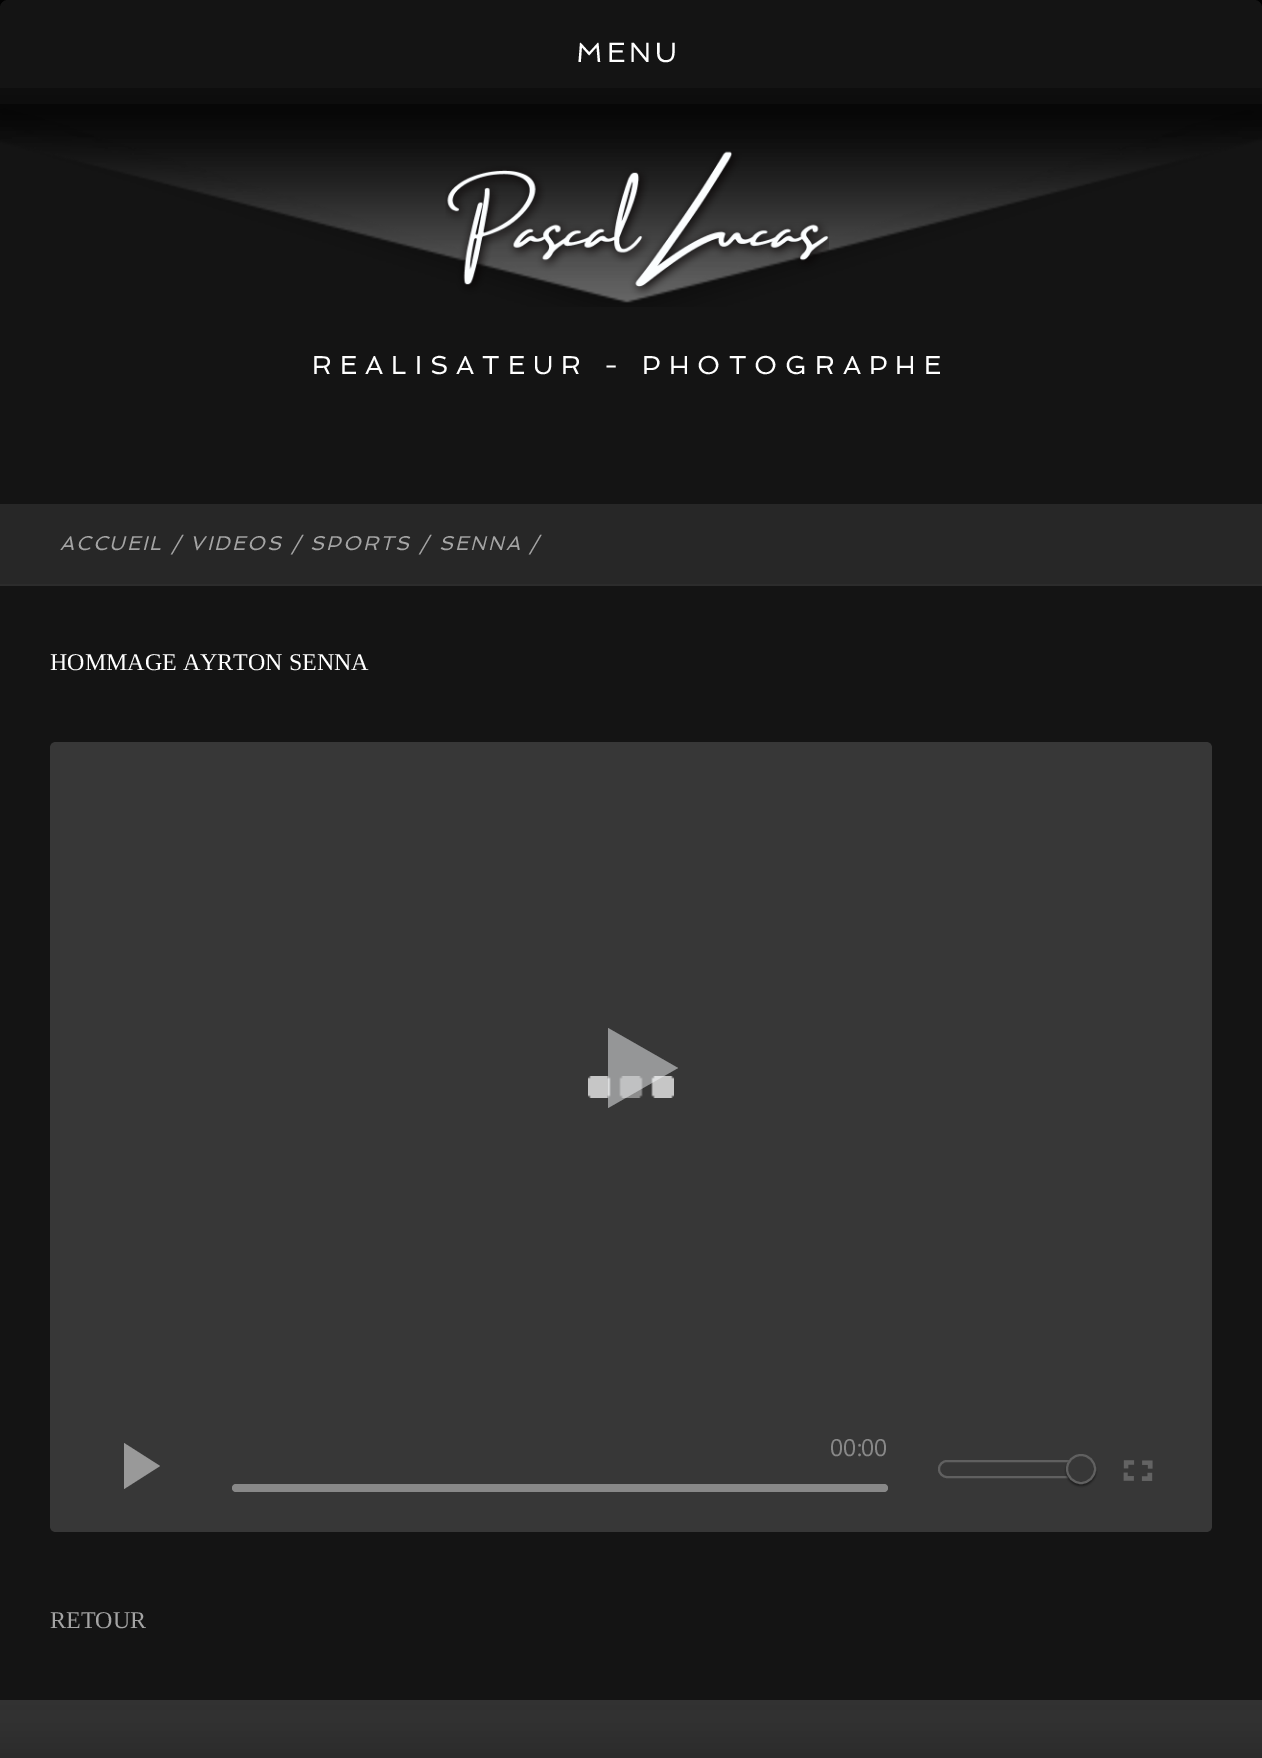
%!PS
<< /PageSize [1262 1758] /PageUsesTransparency true >> setpagedevice
/alpha { dup .setfillconstantalpha .setstrokeconstantalpha } def
/roundrect { 5 dict begin { /r /h /w /y /x } { exch def } forall
  x r add y moveto x w add y 2 copy h add r arct x w add y h add x 1 index r arct
  x y h add x y r arct x y 2 copy exch w add exch r arct closepath end } def
/shadow { 12 dict begin { /a /b /q /h /w /y /x } { exch def } forall gsave /was 0 def
  9 -2 -9 { dup b mul 4 div /e exch def 1 sub .425 mul 2.718 exch exp 1 add a .99 .min exch div /now exch def
    1 1 now sub 1 was sub div sub alpha /was now def
    w h .min e 2 mul add 0 gt { x e sub y e sub w e 2 mul add h e 2 mul add
      q e add b .6 mul add w h .min 2 div e add .min 0 .max roundrect fill } if } for grestore end } def
/picture { 5 dict begin { /h /w /y /x /name } { exch def } forall
  gsave x y translate w h scale
  w h 8 [w 0 0 h 0 0] name (r) file false 3 colorimage grestore end } def
0 .pushpdf14devicefilter
0 1758 translate 1 -1 scale
4 setmiterlimit
0.004 setgray
0 0 1262 1758 rectfill
0.078 setgray
0 0 1262 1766 8 roundrect fill
/Spinnaker-Regular [28 0 0 -28 0 0] selectfont
1 setgray
576 62 moveto 4 0 (MENU) ashow
(img1.rgb) 0 88 1262 16 picture
(img2.rgb) 0 104 1262 203 picture
(img3.rgb) 445 151 384 145 picture
/Spinnaker-Regular [26 0 0 -26 0 0] selectfont
312 374 moveto 8 0 (REALISATEUR - PHOTOGRAPHE) ashow
0.153 setgray
0 504 1262 80 rectfill
/Spinnaker-Italic [20 0 0 -20 0 0] selectfont
0.643 setgray
60 550 moveto 2 0 (ACCUEIL / VIDEOS / SPORTS / SENNA /) ashow
0.173 setgray
0 584 1262 2 rectfill
/LiberationSerif-Regular [24 0 0 -24 0 0] selectfont
1 setgray
50 670 moveto (HOMMAGE AYRTON SENNA) show
0.216 setgray
newpath 56 742 moveto 1206 742 lineto 1209.5 742 1212 744.5 1212 748 curveto 1212 1396 lineto 50 1396 lineto 50 748 lineto 50 744.5 52.5 742 56 742 curveto closepath fill
(img4.rgb) 588 1076 86 22 picture
0.5 alpha
0.953 0.961 0.969 setrgbcolor
newpath 608 1108 moveto 608 1028 lineto 678 1068 lineto closepath fill
1 alpha
0.216 setgray
newpath 50 1396 moveto 1212 1396 lineto 1212 1526 lineto 1212 1529.5 1209.5 1532 1206 1532 curveto 56 1532 lineto 52.5 1532 50 1529.5 50 1526 curveto closepath fill
0.6 setgray
newpath 124 1443 moveto 124 1489 lineto 160 1466 lineto closepath fill
/PTSans-Regular [24 0 0 -24 0 0] selectfont
0.533 setgray
830 1456 moveto (00:00) show
232 1484 656 8 4 roundrect fill
0.376 setgray
2 setlinewidth
939 1461 142 16 8 roundrect stroke
0.118 setgray
1066 1456 30 30 15 1 1 shadow
0.216 setgray
newpath 1081 1469 14 0 360 arc closepath gsave fill grestore
0.376 setgray
stroke
(img5.rgb) 1123 1460 30 21 picture
/LiberationSerif-Regular [24 0 0 -24 0 0] selectfont
0.643 setgray
50 1628 moveto (RETOUR) show
(img6.rgb) 0 1700 1262 58 picture
.poppdf14devicefilter showpage
